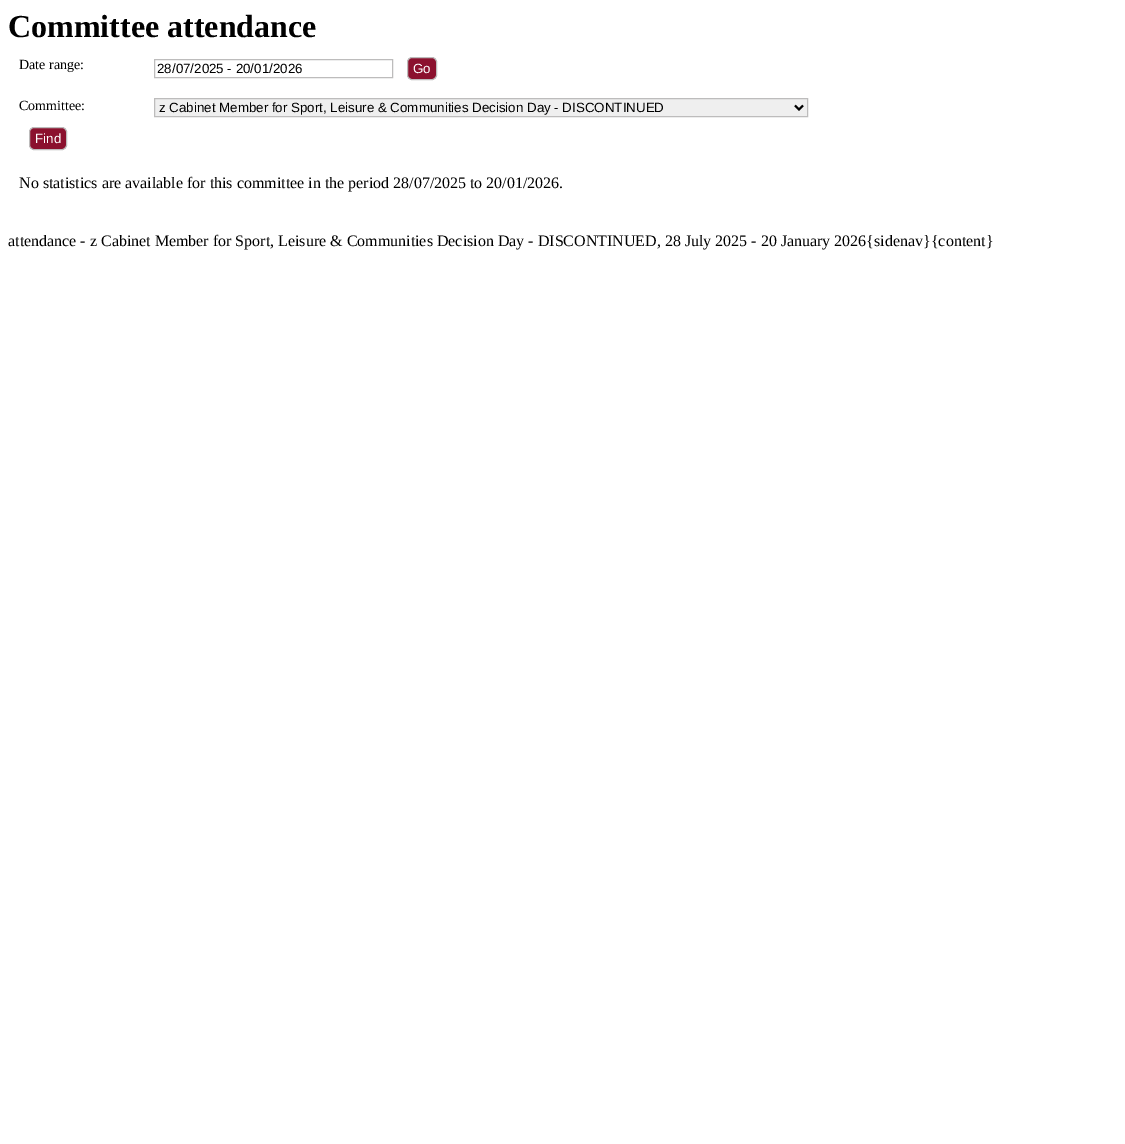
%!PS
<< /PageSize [1125 1144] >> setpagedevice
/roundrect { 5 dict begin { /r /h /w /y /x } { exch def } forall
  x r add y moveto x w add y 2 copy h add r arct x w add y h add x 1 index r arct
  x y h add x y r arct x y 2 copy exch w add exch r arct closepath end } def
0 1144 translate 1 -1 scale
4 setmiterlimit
1 setgray
0 0 1125 1144 rectfill
/LiberationSerif-Bold [32 0 0 -32 0 0] selectfont
0 setgray
8 37 moveto (Committee attendance) show
/LiberationSerif-Regular [14 0 0 -14 0 0] selectfont
19 69 moveto (Date range:) show
0.741 0.737 0.737 setrgbcolor
154.5 59.5 238 18 rectstroke
/LiberationSans-Regular [13.35 0 0 -13.35 0 0] selectfont
0 setgray
157 73 moveto (28/07/2025 - 20/01/2026) show
0.545 0.067 0.18 setrgbcolor
407.5 57.5 29 22 4.5 roundrect gsave fill grestore
0.741 0.737 0.737 setrgbcolor
stroke
1 setgray
413 73 moveto (Go) show
/LiberationSerif-Regular [14 0 0 -14 0 0] selectfont
0 setgray
19 110 moveto (Committee:) show
0.937 setgray
newpath 154.5 98.5 moveto 807.5 98.5 lineto 807.5 116.5 lineto 154.5 116.5 lineto closepath gsave fill grestore
0.741 0.737 0.737 setrgbcolor
stroke
0 setgray
2 setlinewidth
newpath 795 105.5 moveto 799 109.5 lineto 803 105.5 lineto stroke
/LiberationSans-Regular [13.35 0 0 -13.35 0 0] selectfont
159 112 moveto (z Cabinet Member for Sport, Leisure & Communities Decision Day - DISCONTINUED) show
0.545 0.067 0.18 setrgbcolor
29.5 127.5 37 22 4.5 roundrect gsave fill grestore
0.741 0.737 0.737 setrgbcolor
1 setlinewidth
stroke
1 setgray
35 143 moveto (Find) show
/LiberationSerif-Regular [16 0 0 -16 0 0] selectfont
0 setgray
19 188 moveto (No statistics are available for this committee in the period 28/07/2025 to 20/01/2026.) show
8 246 moveto (attendance - z Cabinet Member for Sport, Leisure & Communities Decision Day - DISCONTINUED, 28 July 2025 - 20 January 2026{sidenav}{content}) show
showpage
